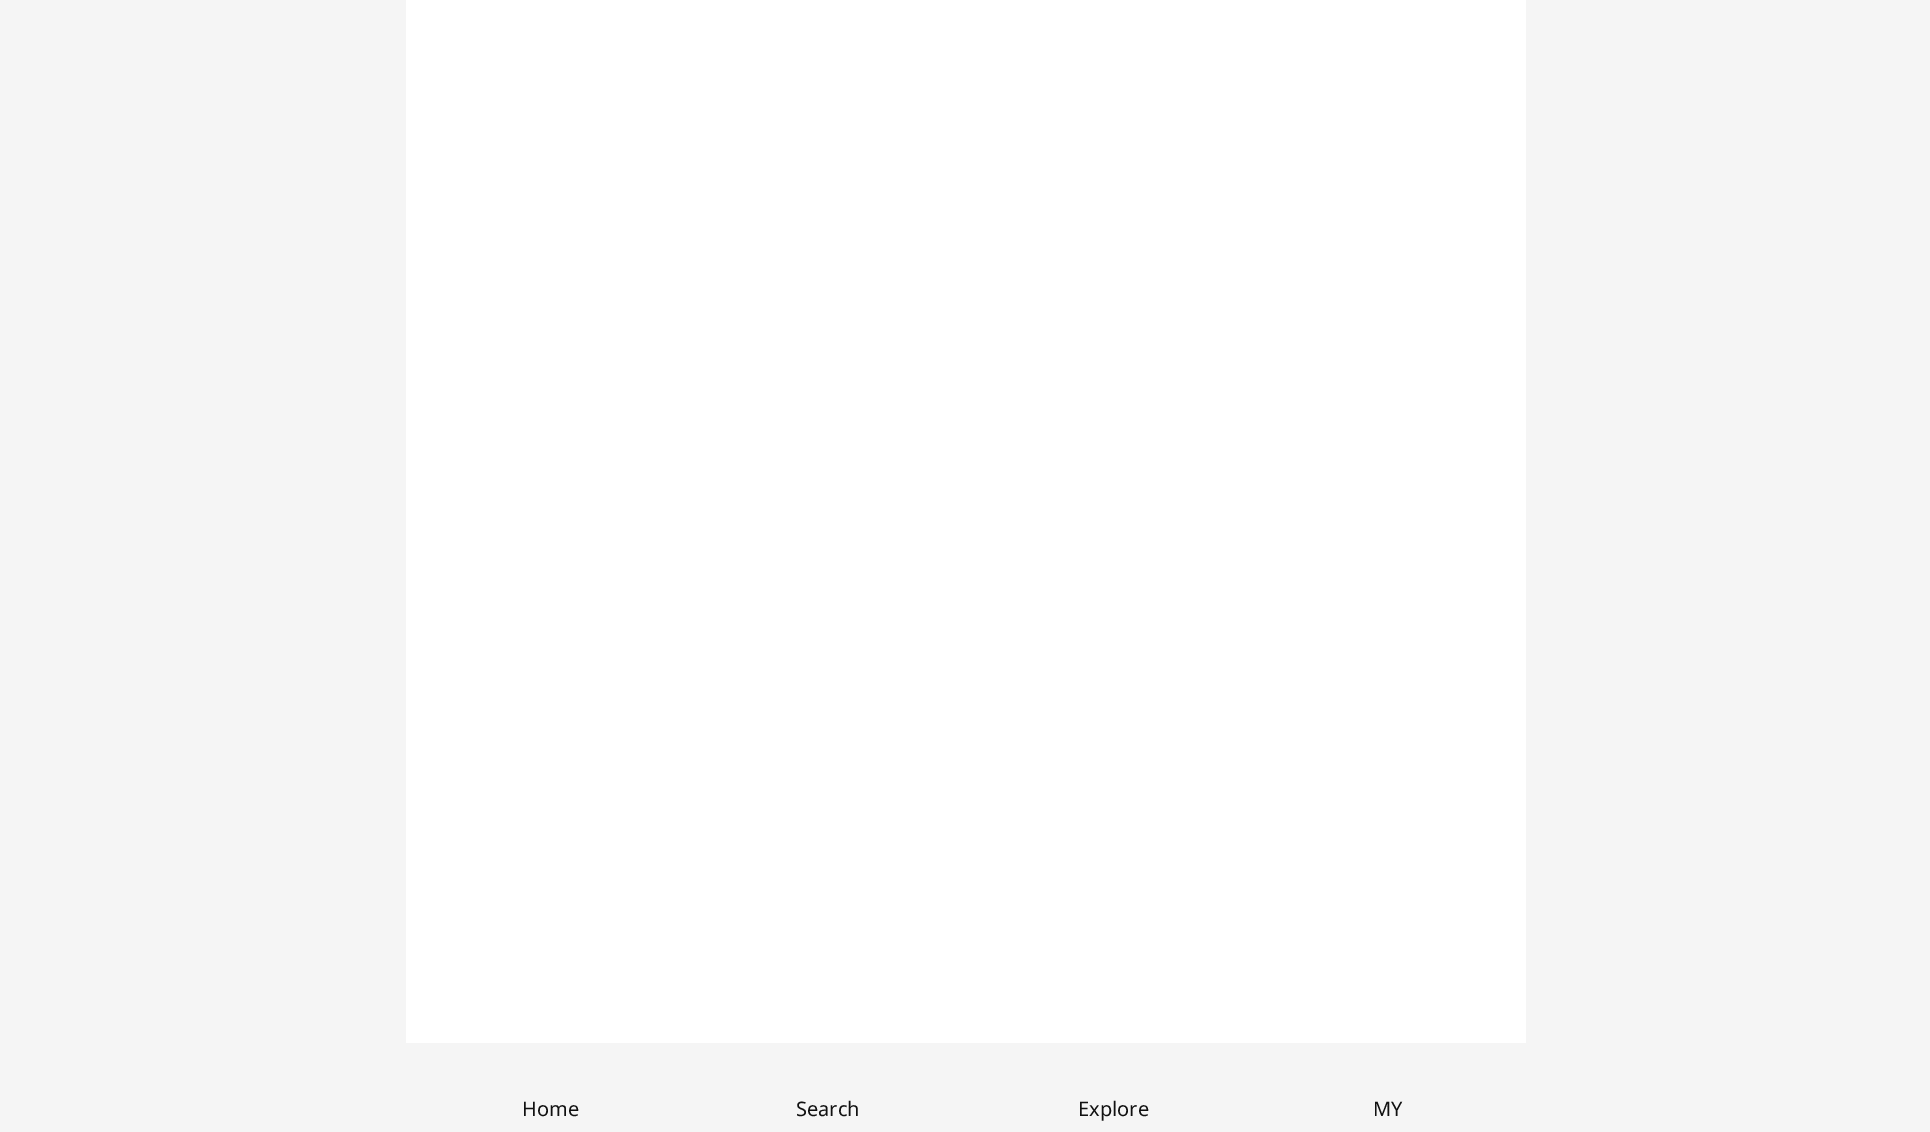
%!PS
<< /PageSize [1930 1132] >> setpagedevice
0 1132 translate 1 -1 scale
4 setmiterlimit
0.961 setgray
0 0 1930 1132 rectfill
1 setgray
406 0 1120 1043 rectfill
/NotoSans-Regular [20 0 0 -20 0 0] selectfont
0.067 setgray
522 1116 moveto (Home) show
796 1116 moveto (Search) show
1078 1116 moveto (Explore) show
1373 1116 moveto (MY) show
showpage
